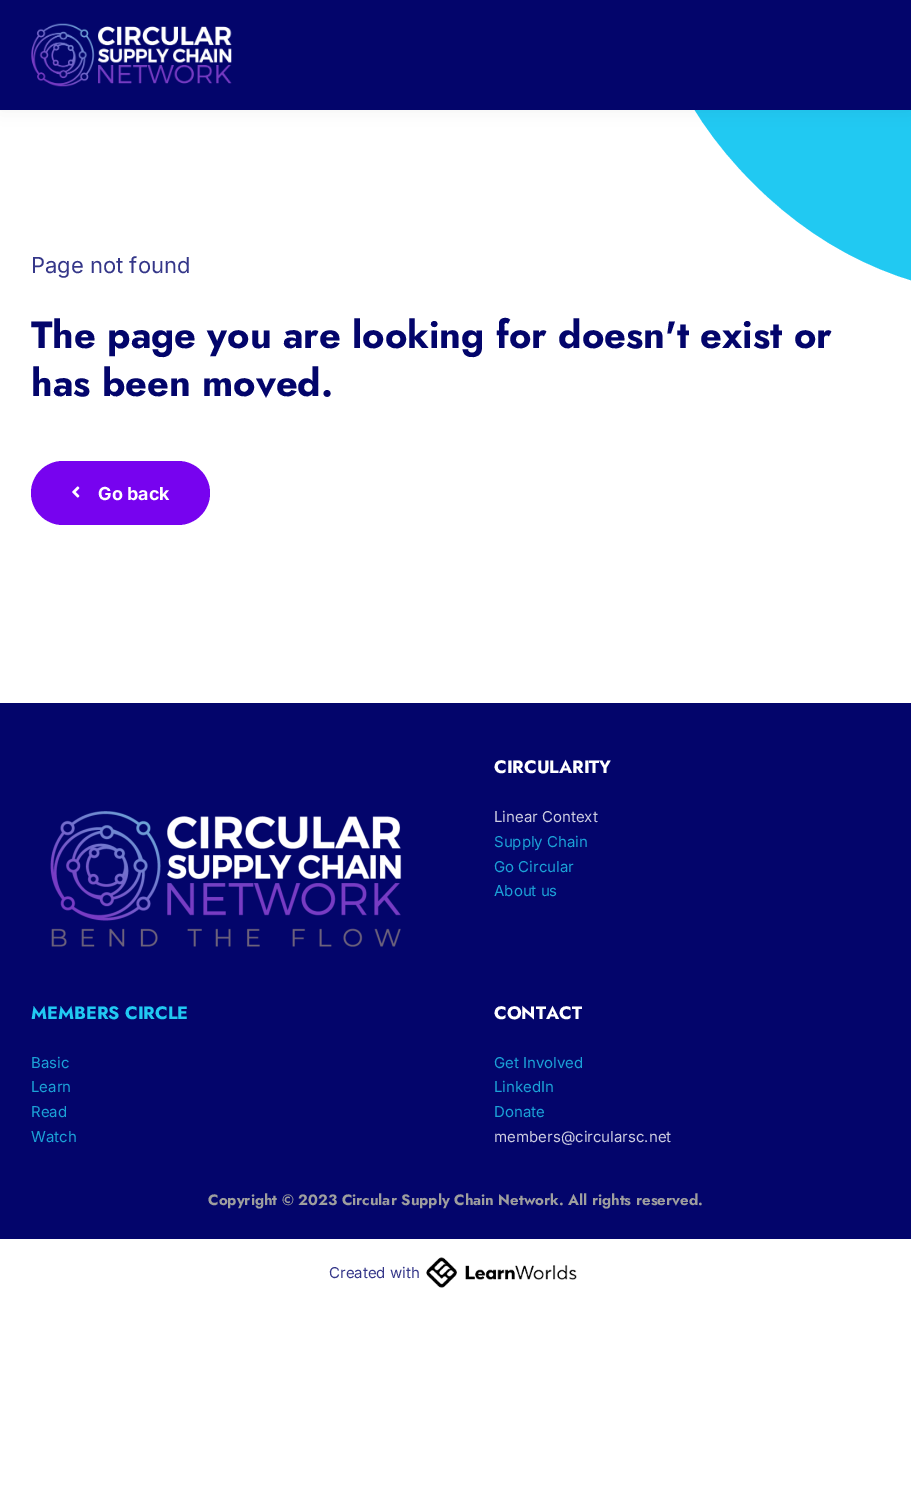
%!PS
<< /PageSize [911 1506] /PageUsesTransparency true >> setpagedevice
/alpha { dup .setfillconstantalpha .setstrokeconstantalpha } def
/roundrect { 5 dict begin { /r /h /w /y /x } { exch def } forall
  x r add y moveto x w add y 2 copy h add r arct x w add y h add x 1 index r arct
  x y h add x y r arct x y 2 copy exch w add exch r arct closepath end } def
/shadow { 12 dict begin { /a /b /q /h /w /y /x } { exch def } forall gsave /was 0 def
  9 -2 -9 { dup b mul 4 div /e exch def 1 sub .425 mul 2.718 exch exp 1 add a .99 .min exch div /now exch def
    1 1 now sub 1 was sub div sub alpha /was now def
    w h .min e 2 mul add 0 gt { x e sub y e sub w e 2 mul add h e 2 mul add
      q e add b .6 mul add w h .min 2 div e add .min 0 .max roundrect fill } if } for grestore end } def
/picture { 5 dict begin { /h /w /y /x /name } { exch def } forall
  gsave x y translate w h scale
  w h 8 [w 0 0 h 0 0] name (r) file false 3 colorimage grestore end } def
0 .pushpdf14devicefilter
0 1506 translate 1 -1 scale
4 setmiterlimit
1 setgray
0 0 911 1506 rectfill
0.129 0.788 0.949 setrgbcolor
newpath 753 -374 moveto 829 -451 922 -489 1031 -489 curveto 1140 -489 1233 -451 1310 -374 curveto 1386 -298 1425 -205 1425 -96 curveto 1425 13 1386 106 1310 183 curveto 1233 259 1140 298 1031 298 curveto 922 298 829 259 753 183 curveto 676 106 638 13 638 -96 curveto 638 -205 676 -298 753 -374 curveto closepath fill
0 setgray
0 0 911 110 0 9.5 0.05 shadow
0.012 0.02 0.42 setrgbcolor
0 0 911 110 rectfill
(img1.rgb) 31 23 201 64 picture
/Inter-Regular [22 0 0 -22 0 0] selectfont
0.208 0.216 0.537 setrgbcolor
31 273 moveto (Page not found) show
/Jost-Bold [38 0 0 -38 0 0] selectfont
0.012 0.02 0.42 setrgbcolor
31 348 moveto (The page you are looking for doesn't exist or) show
31 396 moveto (has been moved.) show
0.467 0.012 0.937 setrgbcolor
31 461 179 64 32 roundrect fill
(img2.rgb) 72 486 8 12 picture
/Inter-Bold [18 0 0 -18 0 0] selectfont
1 setgray
98 500 moveto (Go back) show
0.012 0.02 0.42 setrgbcolor
0 703 911 536 rectfill
(img3.rgb) 50 811 352 136 picture
/Jost-Bold [18 0 0 -18 0 0] selectfont
1 setgray
494 773 moveto (CIRCULARITY) show
/Inter-Regular [15 0 0 -15 0 0] selectfont
0.804 0.804 0.882 setrgbcolor
494 822 moveto (Linear Context) show
0.106 0.635 0.843 setrgbcolor
494 847 moveto (Supply Chain) show
494 872 moveto (Go Circular) show
494 896 moveto (About us) show
/Jost-Bold [18 0 0 -18 0 0] selectfont
0.129 0.788 0.949 setrgbcolor
31 1019 moveto (MEMBERS CIRCLE) show
/Inter-Regular [15 0 0 -15 0 0] selectfont
0.106 0.635 0.843 setrgbcolor
31 1068 moveto (Basic) show
31 1092 moveto (Learn) show
31 1117 moveto (Read) show
31 1142 moveto (Watch) show
/Jost-Bold [18 0 0 -18 0 0] selectfont
1 setgray
494 1019 moveto (CONTACT) show
/Inter-Regular [15 0 0 -15 0 0] selectfont
0.106 0.635 0.843 setrgbcolor
494 1068 moveto (Get Involved) show
494 1092 moveto (LinkedIn) show
494 1117 moveto (Donate) show
0.804 0.804 0.882 setrgbcolor
494 1142 moveto (members@circularsc.net) show
/Jost-Bold [15 0 0 -15 0 0] selectfont
0.62 setgray
208 1205 moveto (Copyright © 2023 Circular Supply Chain Network. All rights reserved.) show
/Inter-Regular [15 0 0 -15 0 0] selectfont
0.208 0.216 0.537 setrgbcolor
329 1278 moveto (Created with) show
(img4.rgb) 426 1257 151 31 picture
.poppdf14devicefilter showpage
